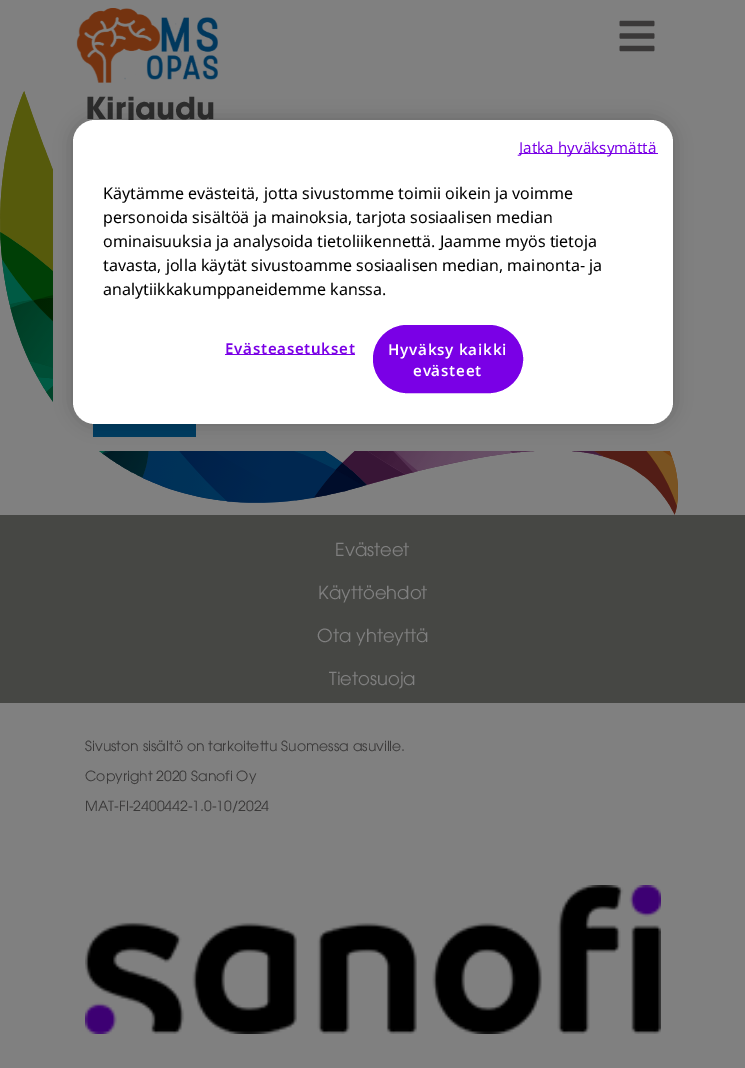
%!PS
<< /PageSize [745 1068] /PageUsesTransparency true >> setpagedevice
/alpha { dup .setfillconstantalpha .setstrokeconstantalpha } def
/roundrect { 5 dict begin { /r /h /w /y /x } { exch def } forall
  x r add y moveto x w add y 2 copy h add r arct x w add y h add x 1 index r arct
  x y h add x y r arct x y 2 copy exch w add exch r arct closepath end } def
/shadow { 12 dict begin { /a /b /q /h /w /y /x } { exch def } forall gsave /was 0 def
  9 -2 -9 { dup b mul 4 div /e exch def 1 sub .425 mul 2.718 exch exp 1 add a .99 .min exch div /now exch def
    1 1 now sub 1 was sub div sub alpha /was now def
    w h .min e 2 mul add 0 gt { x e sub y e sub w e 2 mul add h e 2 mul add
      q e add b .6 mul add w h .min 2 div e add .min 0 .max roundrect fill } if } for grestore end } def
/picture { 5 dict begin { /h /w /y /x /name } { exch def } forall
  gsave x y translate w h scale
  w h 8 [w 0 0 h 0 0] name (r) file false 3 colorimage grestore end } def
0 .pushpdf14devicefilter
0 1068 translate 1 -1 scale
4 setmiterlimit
0.502 setgray
0 0 745 1068 rectfill
(img1.rgb) 76 8 142 75 picture
(img2.rgb) 619 20 36 32 picture
(img3.rgb) 0 91 678 424 picture
53 170 617 281 rectfill
/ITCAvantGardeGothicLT-Bold [30 0 0 -30 0 0] selectfont
0.173 setgray
85 119 moveto (Kirjaudu) show
0 0.231 0.376 setrgbcolor
93 423 103 14 rectfill
0 setgray
73 120 600 304 22 9 0.2 shadow
1 setgray
73 120 600 304 22 roundrect fill
0.478 0 0.902 setrgbcolor
519 153 139 1 rectfill
/NotoSans-Regular [15 0 0 -15 0 0] selectfont
519 153 moveto 0.1 0 (Jatka hyväksymättä) ashow
/NotoSans-Regular [16 0 0 -16 0 0] selectfont
0 setgray
103 199 moveto (Käytämme evästeitä, jotta sivustomme toimii oikein ja voimme) show
103 223 moveto (personoida sisältöä ja mainoksia, tarjota sosiaalisen median) show
103 247 moveto (ominaisuuksia ja analysoida tietoliikennettä. Jaamme myös tietoja) show
103 271 moveto (tavasta, jolla käytät sivustoamme sosiaalisen median, mainonta- ja) show
103 295 moveto (analytiikkakumppaneidemme kanssa.) show
0.478 0 0.902 setrgbcolor
225 354 130 1 rectfill
/NotoSans-SemiBold [15 0 0 -15 0 0] selectfont
225 354 moveto 0.75 0 (Evästeasetukset) ashow
373.5 325.5 149 67 33.5 roundrect gsave fill grestore
stroke
1 setgray
388 355 moveto 0.75 0 (Hyväksy kaikki) ashow
413 376 moveto 0.75 0 (evästeet) ashow
0.275 0.278 0.267 setrgbcolor
0 515 745 188 rectfill
/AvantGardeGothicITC-Regular [18 0 0 -18 0 0] selectfont
0.502 setgray
335 556 moveto (Evästeet) show
318 599 moveto (Käyttöehdot) show
317 642 moveto (Ota yhteyttä) show
329 685 moveto (Tietosuoja) show
/AvantGardeGothicITC-Regular [14 0 0 -14 0 0] selectfont
0.227 0.224 0.224 setrgbcolor
85 751 moveto (Sivuston sisältö on tarkoitettu Suomessa asuville.) show
85 781 moveto (Copyright 2020 Sanofi Oy) show
85 811 moveto (MAT-FI-2400442-1.0-10/2024) show
(img4.rgb) 85 885 576 149 picture
.poppdf14devicefilter showpage
